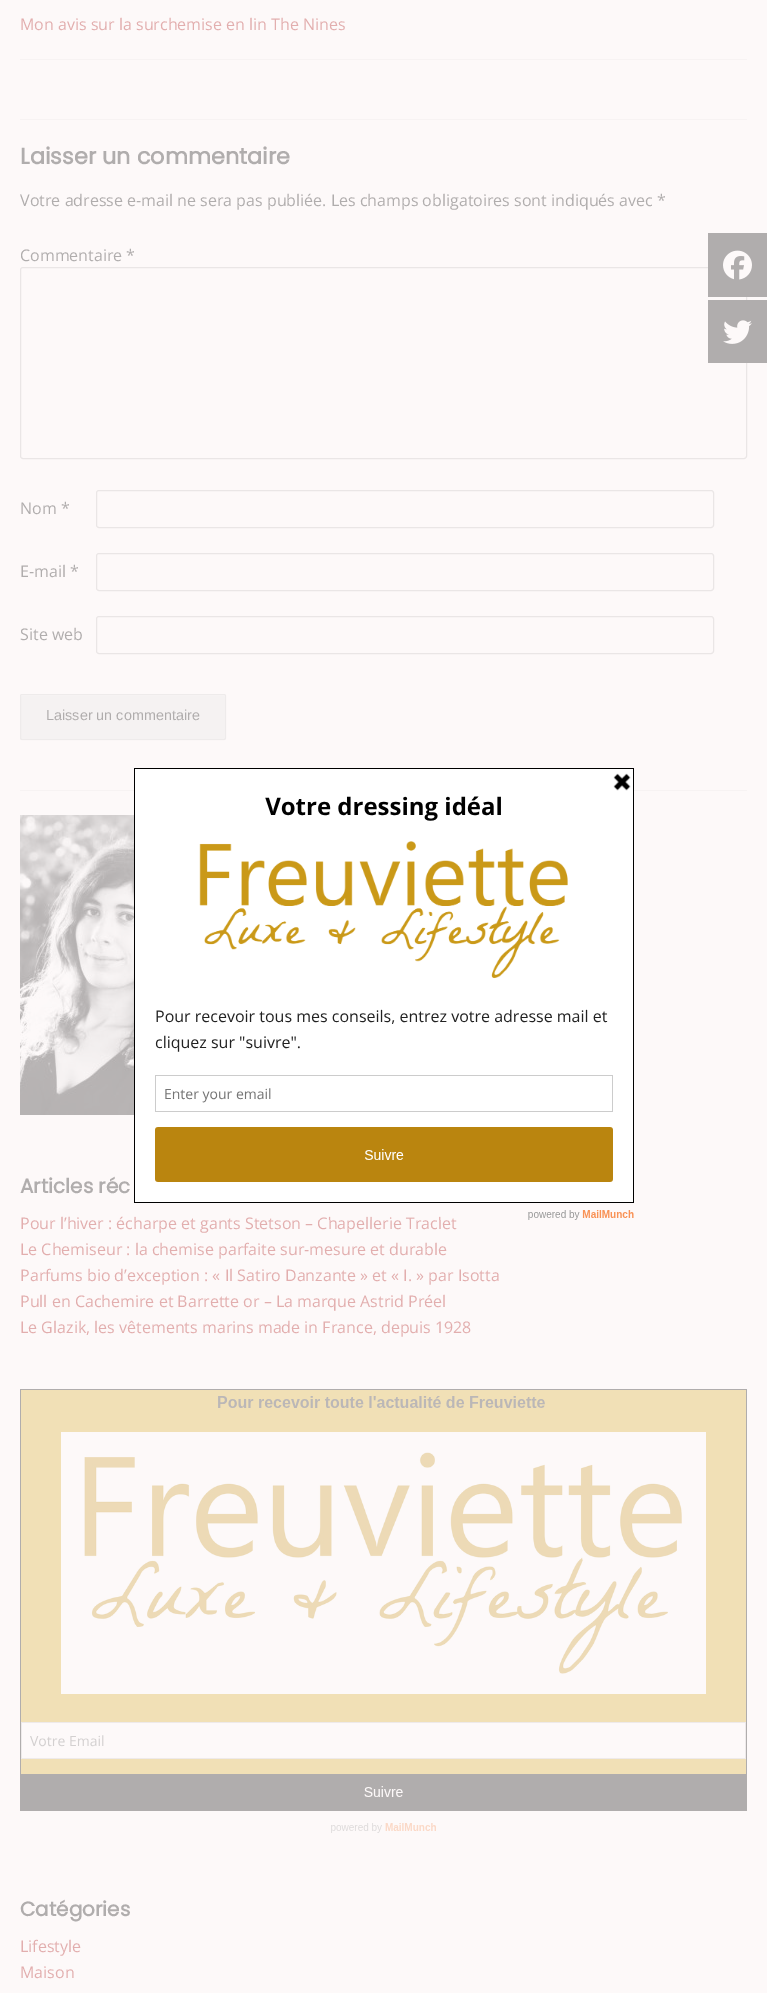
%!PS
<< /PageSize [767 1993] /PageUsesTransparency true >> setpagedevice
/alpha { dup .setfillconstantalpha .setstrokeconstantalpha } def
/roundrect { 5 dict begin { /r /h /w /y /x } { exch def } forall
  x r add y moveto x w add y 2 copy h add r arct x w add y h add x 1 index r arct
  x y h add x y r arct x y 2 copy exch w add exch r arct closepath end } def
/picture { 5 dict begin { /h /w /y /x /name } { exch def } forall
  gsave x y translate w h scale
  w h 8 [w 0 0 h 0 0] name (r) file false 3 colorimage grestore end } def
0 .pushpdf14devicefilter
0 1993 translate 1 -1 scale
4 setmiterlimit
0.992 0.976 0.976 setrgbcolor
0 0 767 1993 rectfill
0.969 0.953 0.953 setrgbcolor
20 790 727 1 rectfill
/OpenSans-Regular [16 0 0 -16 0 0] selectfont
0.886 0.682 0.682 setrgbcolor
20 30 moveto (Mon avis sur la surchemise en lin The Nines) show
0.969 0.953 0.953 setrgbcolor
20 59 727 1 rectfill
20 119 727 1 rectfill
/Poppins-Bold [22.4 0 0 -22.4 0 0] selectfont
0.69 0.678 0.678 setrgbcolor
20 164 moveto (Laisser un commentaire) show
/OpenSans-Regular [16 0 0 -16 0 0] selectfont
20 206 moveto (Votre adresse e-mail ne sera pas publiée. Les champs obligatoires sont indiqués avec *) show
20 261 moveto (Commentaire *) show
0.918 0.902 0.902 setrgbcolor
20.5 267.5 726 191 2.5 roundrect stroke
0.69 0.678 0.678 setrgbcolor
20 514 moveto (Nom *) show
0.918 0.902 0.902 setrgbcolor
96.5 490.5 617 37 2.5 roundrect stroke
0.69 0.678 0.678 setrgbcolor
20 577 moveto (E-mail *) show
0.918 0.902 0.902 setrgbcolor
96.5 553.5 617 37 2.5 roundrect stroke
0.69 0.678 0.678 setrgbcolor
20 640 moveto (Site web) show
0.918 0.902 0.902 setrgbcolor
96.5 616.5 617 37 2.5 roundrect stroke
0.961 0.949 0.949 setrgbcolor
20 694 206 46 2 roundrect fill
0.973 0.961 0.961 setrgbcolor
newpath 22 696 moveto 225 696 lineto 225 697 lineto 225 696 225 695 224 695 curveto 22 695 lineto 21 695 lineto 21 697 lineto 21 696 21 696 22 696 curveto closepath fill
0.1 alpha
0.69 0.678 0.678 setrgbcolor
20.5 694.5 205 45 1.5 roundrect stroke
/LiberationSans-Regular [14.4 0 0 -14.4 0 0] selectfont
1 alpha
46 720 moveto (Laisser un commentaire) show
(img1.rgb) 20 815 114 300 picture
/Poppins-Bold [20 0 0 -20 0 0] selectfont
20 1193 moveto (Articles réc) show
/OpenSans-Regular [16 0 0 -16 0 0] selectfont
0.886 0.682 0.682 setrgbcolor
20 1229 moveto (Pour l’hiver : écharpe et gants Stetson – Chapellerie Traclet) show
20 1255 moveto (Le Chemiseur : la chemise parfaite sur-mesure et durable) show
20 1281 moveto (Parfums bio d’exception : « Il Satiro Danzante » et « I. » par Isotta) show
20 1307 moveto (Pull en Cachemire et Barrette or – La marque Astrid Préel) show
20 1333 moveto (Le Glazik, les vêtements marins made in France, depuis 1928) show
(img2.rgb) 20 1389 727 444 picture
/Poppins-Bold [20 0 0 -20 0 0] selectfont
0.69 0.678 0.678 setrgbcolor
20 1916 moveto (Catégories) show
/OpenSans-Regular [16 0 0 -16 0 0] selectfont
0.886 0.682 0.682 setrgbcolor
20 1952 moveto (Lifestyle) show
20 1978 moveto (Maison) show
0.69 0.678 0.678 setrgbcolor
708 233 59 64 rectfill
(img3.rgb) 723 250 29 30 picture
708 300 59 63 rectfill
(img4.rgb) 723 320 29 24 picture
(img5.rgb) 134 768 500 452 picture
.poppdf14devicefilter showpage
